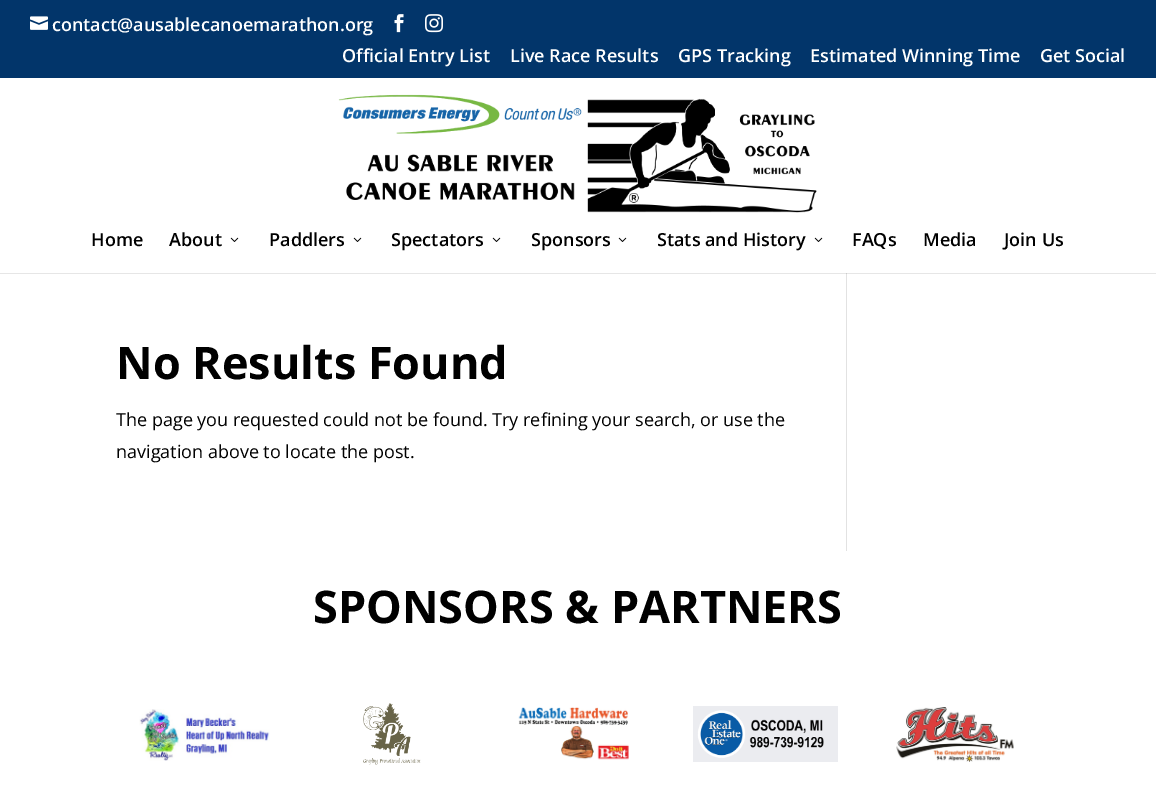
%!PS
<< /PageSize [1156 790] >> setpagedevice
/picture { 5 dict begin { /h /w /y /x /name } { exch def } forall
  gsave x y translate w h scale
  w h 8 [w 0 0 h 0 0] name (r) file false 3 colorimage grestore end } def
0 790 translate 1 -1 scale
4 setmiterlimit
1 setgray
0 0 1156 790 rectfill
0.902 setgray
0 273 1156 1 rectfill
0.008 0.208 0.416 setrgbcolor
0 0 1156 78 rectfill
(img1.rgb) 30 16 18 14 picture
/OpenSans-SemiBold [18 0 0 -18 0 0] selectfont
1 setgray
52 31 moveto (contact@ausablecanoemarathon.org) show
(img2.rgb) 394 14 10 19 picture
(img3.rgb) 425 14 18 19 picture
342 62 moveto (Official Entry List) show
510 62 moveto (Live Race Results) show
678 62 moveto (GPS Tracking) show
810 62 moveto (Estimated Winning Time) show
1040 62 moveto (Get Social) show
0.886 setgray
846 272 1 279 rectfill
1 setgray
846 272 1 1 rectfill
(img4.rgb) 338 94 479 119 picture
0 setgray
91 246 moveto (Home) show
169 246 moveto (About) show
(img5.rgb) 230 237 9 5 picture
269 246 moveto (Paddlers) show
(img5.rgb) 353 237 9 5 picture
391 246 moveto (Spectators) show
(img5.rgb) 492 237 9 5 picture
531 246 moveto (Sponsors) show
(img5.rgb) 618 237 9 5 picture
657 246 moveto (Stats and History) show
(img5.rgb) 814 237 9 5 picture
852 246 moveto (FAQs) show
923 246 moveto (Media) show
1004 246 moveto (Join Us) show
/OpenSans-Bold [45 0 0 -45 0 0] selectfont
116 379 moveto (No Results Found) show
/OpenSans-Regular [18 0 0 -18 0 0] selectfont
116 426 moveto (The page you requested could not be found. Try refining your search, or use the) show
116 458 moveto (navigation above to locate the post.) show
0.796 setgray
846 273 1 1 rectfill
/OpenSans-Bold [45 0 0 -45 0 0] selectfont
0 setgray
313 623 moveto (SPONSORS & PARTNERS) show
(img6.rgb) 139 709 131 52 picture
(img7.rgb) 363 703 58 62 picture
(img8.rgb) 518 707 111 53 picture
(img9.rgb) 693 706 145 56 picture
(img10.rgb) 896 707 118 55 picture
showpage
